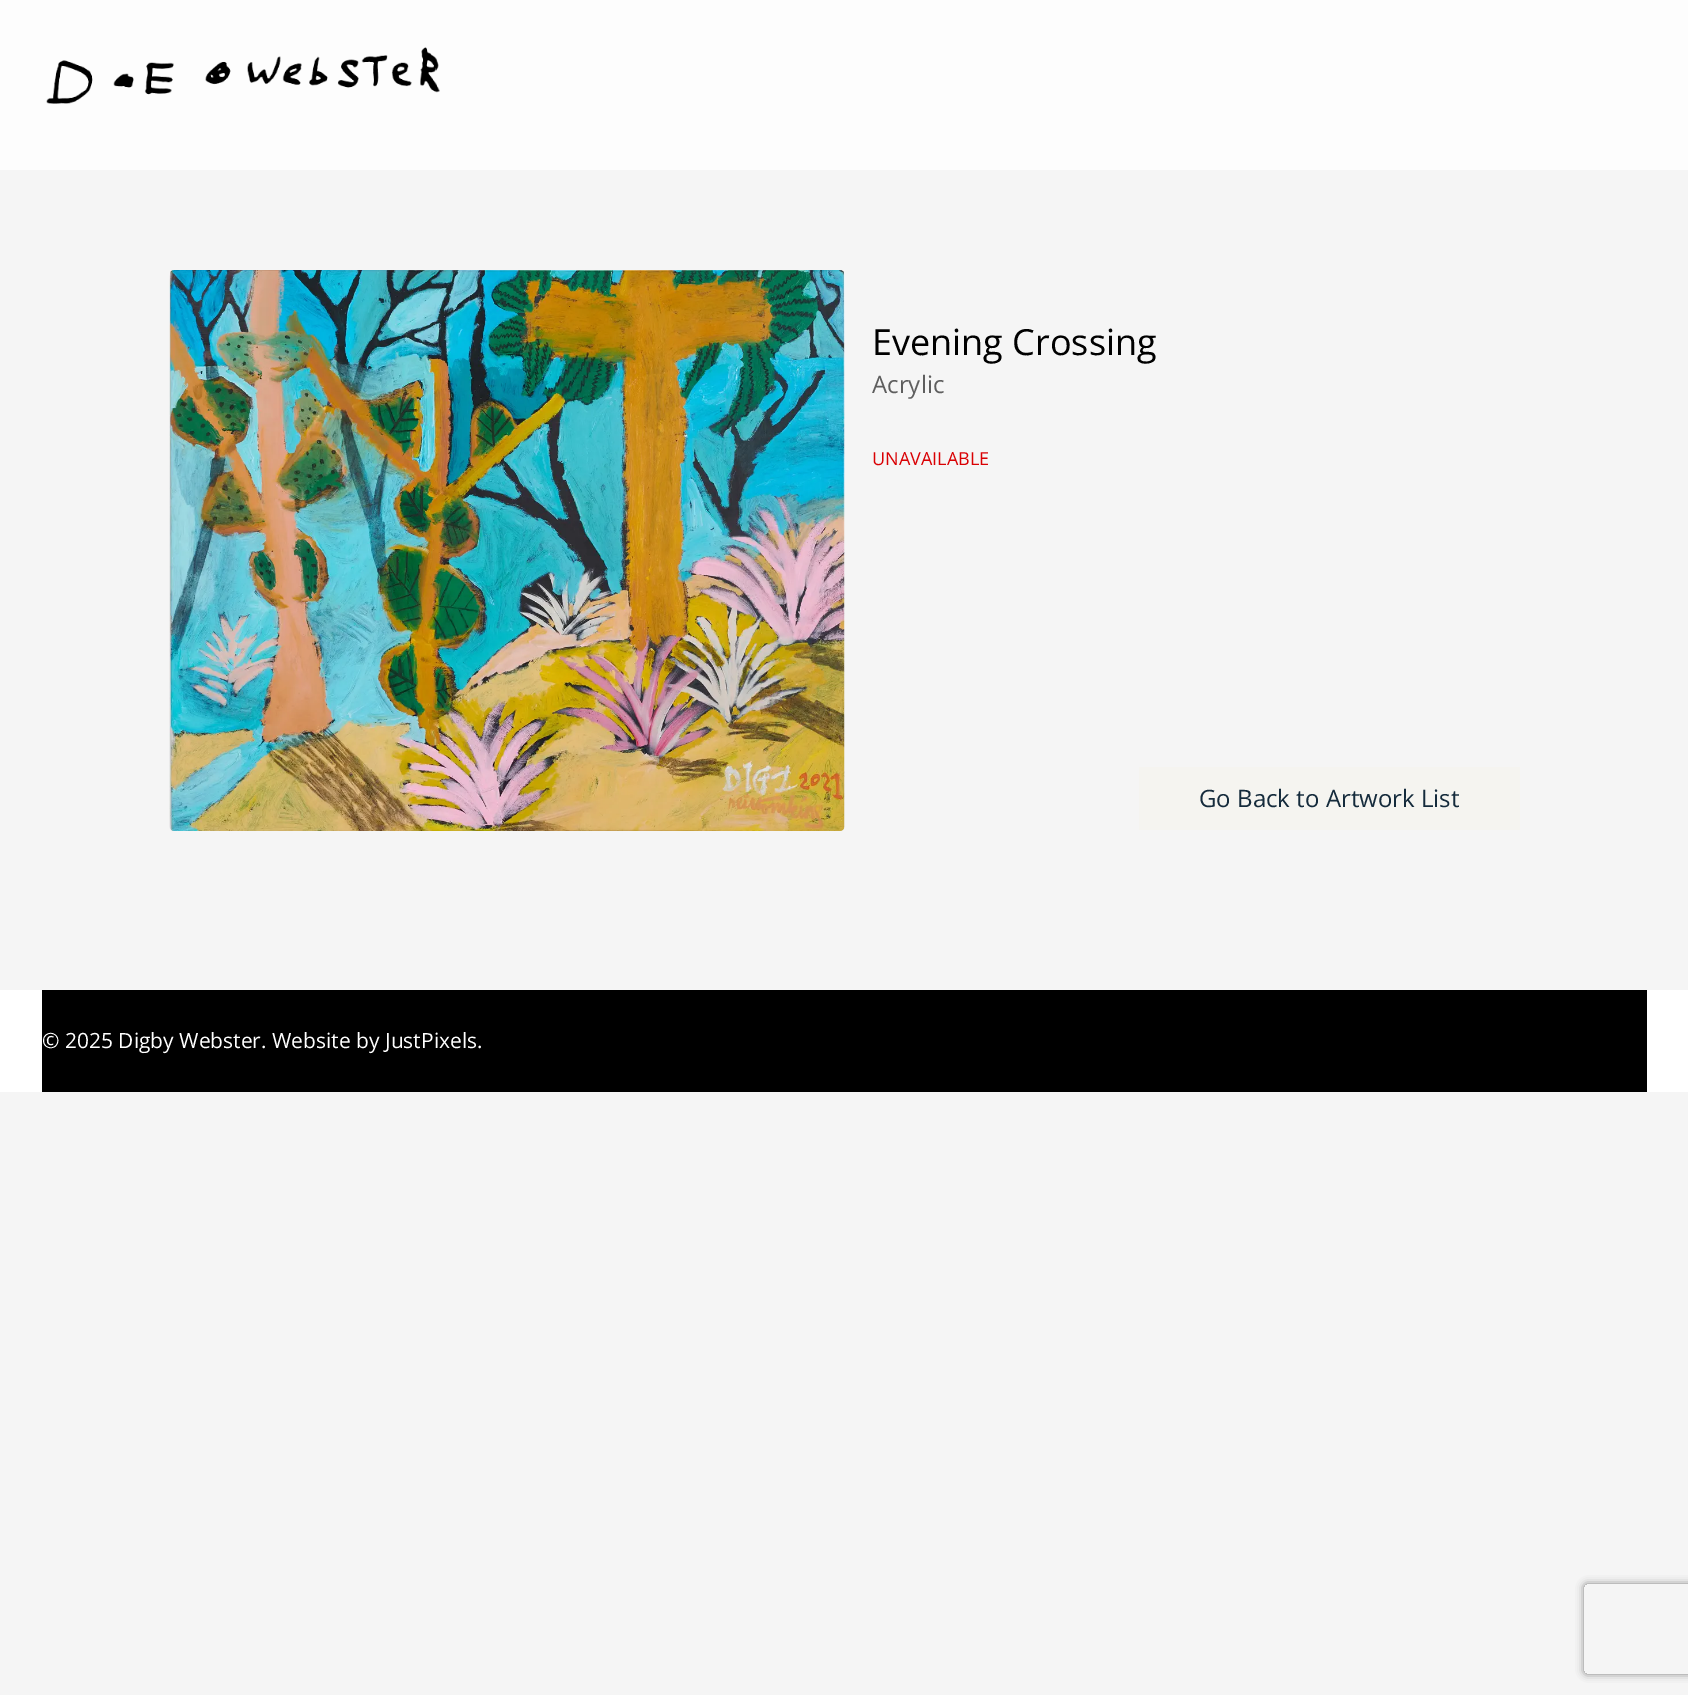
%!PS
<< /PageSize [1688 1695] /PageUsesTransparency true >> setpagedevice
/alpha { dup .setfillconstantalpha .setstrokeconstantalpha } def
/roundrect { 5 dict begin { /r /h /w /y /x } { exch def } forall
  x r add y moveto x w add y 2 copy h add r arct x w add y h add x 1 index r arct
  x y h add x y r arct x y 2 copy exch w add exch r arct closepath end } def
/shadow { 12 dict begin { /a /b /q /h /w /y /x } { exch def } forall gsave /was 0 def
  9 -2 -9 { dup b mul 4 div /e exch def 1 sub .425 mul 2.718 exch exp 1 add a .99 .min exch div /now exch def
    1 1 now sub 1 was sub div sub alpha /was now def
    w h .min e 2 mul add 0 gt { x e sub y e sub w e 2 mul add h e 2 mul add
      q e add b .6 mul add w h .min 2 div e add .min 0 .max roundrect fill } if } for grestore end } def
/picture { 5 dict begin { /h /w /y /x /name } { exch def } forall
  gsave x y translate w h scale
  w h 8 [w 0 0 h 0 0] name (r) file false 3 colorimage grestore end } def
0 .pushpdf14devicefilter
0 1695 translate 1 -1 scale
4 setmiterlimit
0.961 setgray
0 0 1688 1695 rectfill
0.992 setgray
0 0 1688 170 rectfill
(img1.rgb) 46 47 394 57 picture
(img2.rgb) 169 270 676 561 picture
/OpenSans-Regular [36 0 0 -36 0 0] selectfont
0 setgray
872 355 moveto (Evening Crossing) show
/OpenSans-Regular [24 0 0 -24 0 0] selectfont
0.369 setgray
872 393 moveto (Acrylic) show
/OpenSans-Regular [18 0 0 -18 0 0] selectfont
0.851 0 0.012 setrgbcolor
872 465 moveto (UNAVAILABLE) show
0.961 0.957 0.941 setrgbcolor
1139 767 381 63 rectfill
/OpenSans-Regular [24 0 0 -24 0 0] selectfont
0.082 0.169 0.235 setrgbcolor
1199 807 moveto (Go Back to Artwork List) show
1 setgray
0 990 1688 102 rectfill
0 setgray
42 990 1605 102 rectfill
/OpenSans-Regular [21 0 0 -21 0 0] selectfont
1 setgray
42 1048 moveto (© 2025 Digby Webster. Website by JustPixels.) show
gsave
newpath 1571 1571 moveto 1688 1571 lineto 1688 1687 lineto 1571 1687 lineto closepath 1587 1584 moveto 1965 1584 lineto 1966.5 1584 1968 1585.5 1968 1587 curveto 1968 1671 lineto 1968 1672.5 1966.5 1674 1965 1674 curveto 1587 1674 lineto 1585.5 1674 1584 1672.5 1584 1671 curveto 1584 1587 lineto 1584 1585.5 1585.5 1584 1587 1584 curveto closepath eoclip newpath
0.502 setgray
1584 1584 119 90 3 4 1 shadow
grestore
.poppdf14devicefilter showpage
